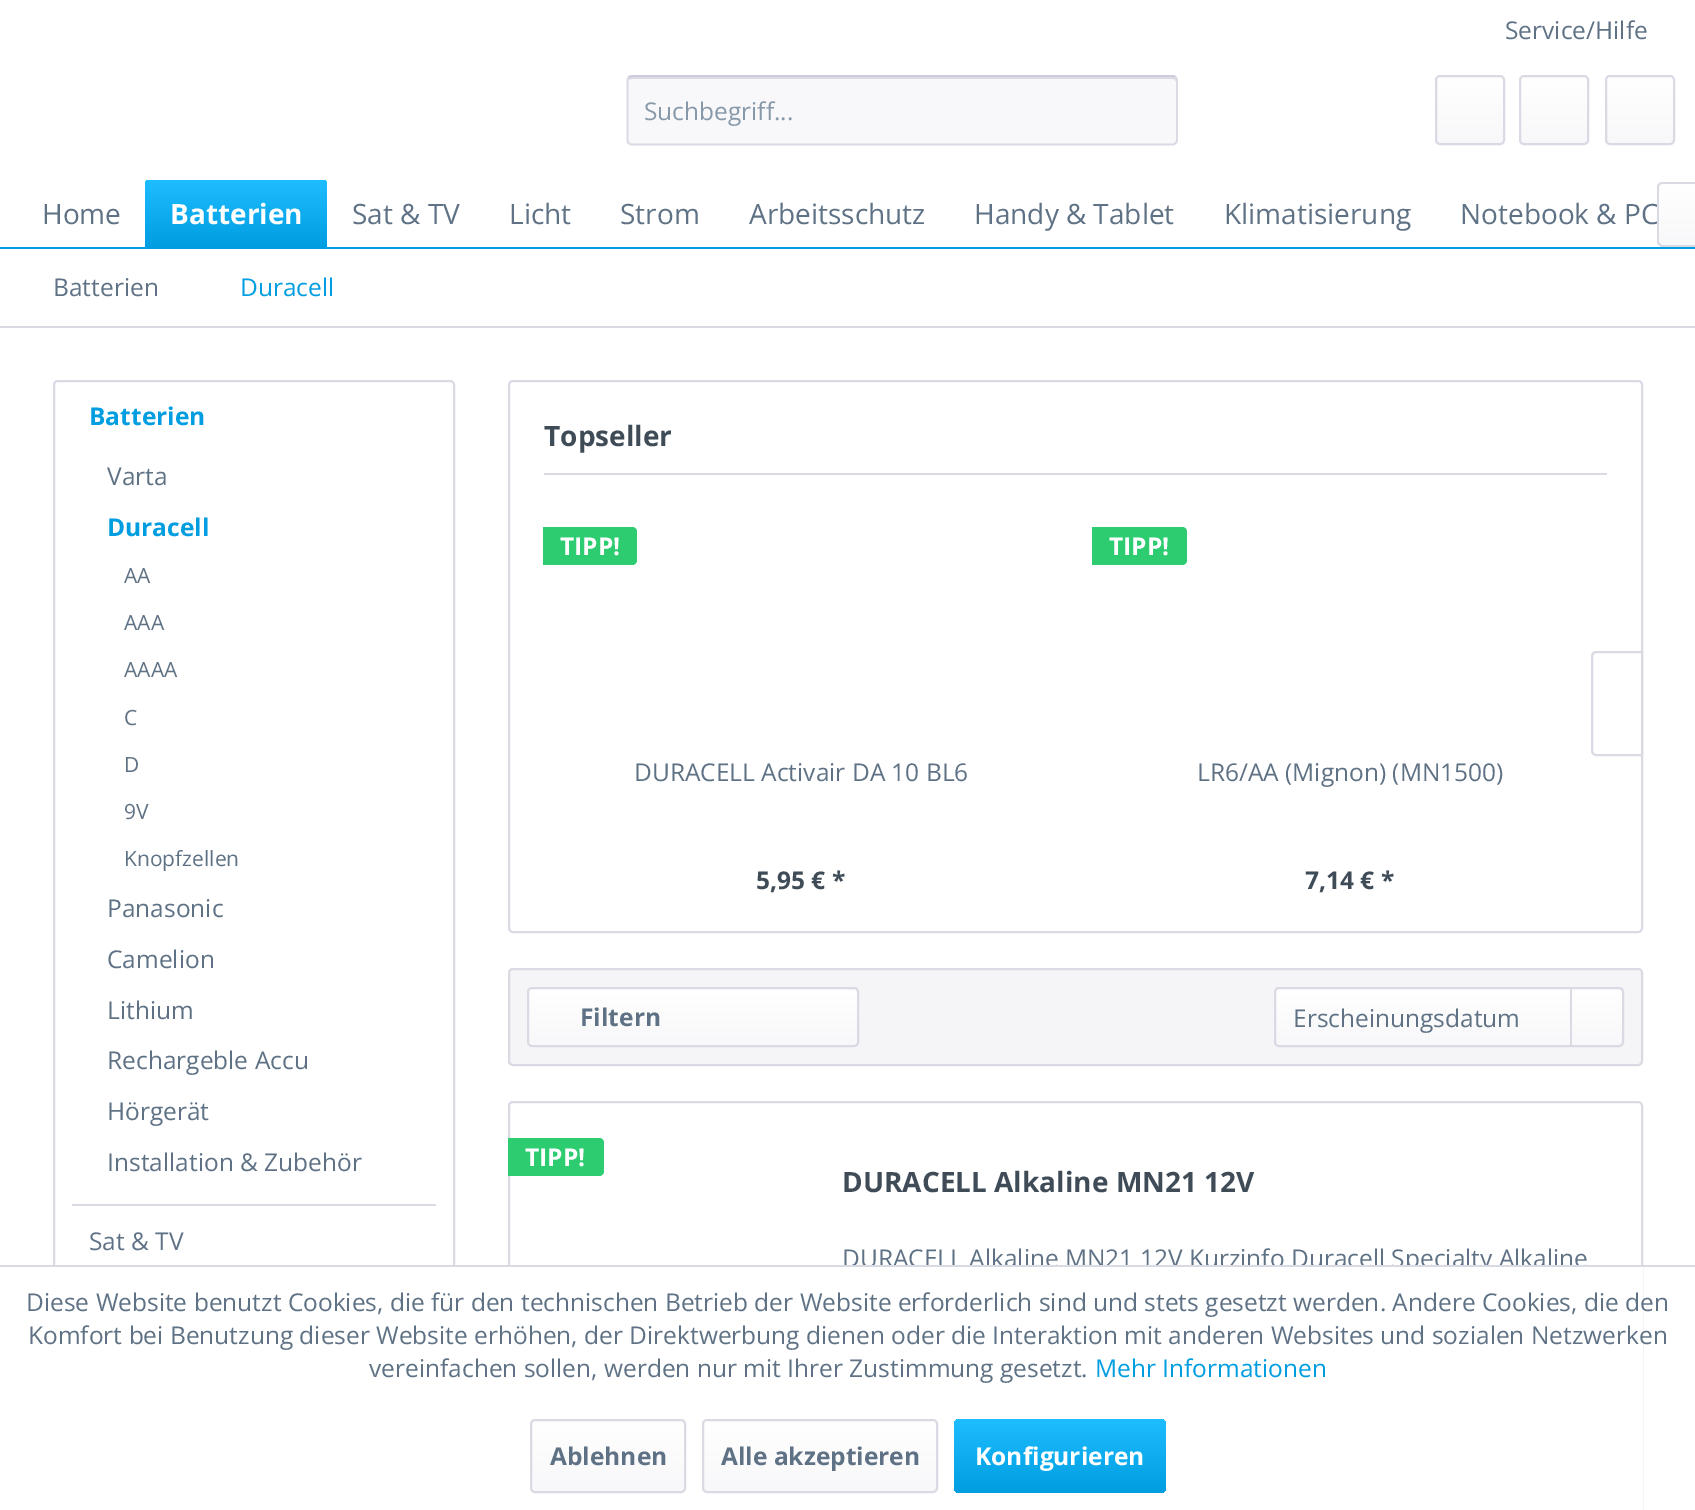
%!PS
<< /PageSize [1695 1510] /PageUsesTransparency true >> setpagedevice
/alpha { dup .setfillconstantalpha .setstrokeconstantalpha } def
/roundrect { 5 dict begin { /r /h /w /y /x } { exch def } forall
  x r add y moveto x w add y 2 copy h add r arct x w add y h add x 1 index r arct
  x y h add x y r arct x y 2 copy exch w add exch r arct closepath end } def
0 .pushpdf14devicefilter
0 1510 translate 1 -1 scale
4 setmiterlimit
1 setgray
0 0 1695 1510 rectfill
/OpenSans-Regular [24.5 0 0 -24.5 0 0] selectfont
0.373 0.447 0.522 setrgbcolor
1505 39 moveto (Service/Hilfe) show
0.973 0.973 0.98 setrgbcolor
627 75 551 70 5 roundrect fill
0.855 0.855 0.898 setrgbcolor
newpath 632 79 moveto 1172 79 lineto 1174 79 1176 80 1176 82 curveto 1176 81 lineto 1176 79 1174 77 1172 77 curveto 632 77 lineto 630 77 628 79 628 81 curveto 628 82 lineto 628 80 630 79 632 79 curveto closepath fill
0.796 0.796 0.859 setrgbcolor
1.8 setlinewidth
newpath 628.5 77.5 moveto 629.5 76.5 630.5 76 632 76 curveto 1172.5 76 lineto 1173.5 76 1175 76.5 1175.5 77.5 curveto stroke
0.855 0.855 0.898 setrgbcolor
newpath 1175.5 77.5 moveto 1176.5 78 1177 79.5 1177 80.5 curveto 1177 140 lineto 1177 141 1176.5 142.5 1175.5 143 curveto 1175 144 1173.5 144.5 1172.5 144.5 curveto 632 144.5 lineto 630.5 144.5 629.5 144 628.5 143 curveto 628 142.5 627.5 141 627.5 140 curveto 627.5 80.5 lineto 627.5 79.5 628 78 628.5 77.5 curveto stroke
0.529 0.596 0.663 setrgbcolor
644 120 moveto (Suchbegriff...) show
gsave 1437 77 66 67 4 roundrect clip newpath
<< /ShadingType 2 /ColorSpace /DeviceRGB /Coords [1470 77 1470 144] /Extend [true true] /Function << /FunctionType 2 /Domain [0 1] /C0 [1 1 1] /C1 [0.973 0.973 0.98] /N 1 >> >> shfill grestore
0.855 0.855 0.898 setrgbcolor
2 setlinewidth
1436 76 68 68 4 roundrect stroke
gsave 1521 77 66 67 4 roundrect clip newpath
<< /ShadingType 2 /ColorSpace /DeviceRGB /Coords [1554 77 1554 144] /Extend [true true] /Function << /FunctionType 2 /Domain [0 1] /C0 [1 1 1] /C1 [0.973 0.973 0.98] /N 1 >> >> shfill grestore
1520 76 68 68 4 roundrect stroke
gsave 1607 77 66 67 4 roundrect clip newpath
<< /ShadingType 2 /ColorSpace /DeviceRGB /Coords [1640 77 1640 144] /Extend [true true] /Function << /FunctionType 2 /Domain [0 1] /C0 [1 1 1] /C1 [0.973 0.973 0.98] /N 1 >> >> shfill grestore
1606 76 68 68 4 roundrect stroke
0 0.62 0.878 setrgbcolor
0 247 1695 2 rectfill
/OpenSans-Regular [28 0 0 -28 0 0] selectfont
0.373 0.447 0.522 setrgbcolor
42 224 moveto (Home) show
gsave newpath 150 180 moveto 322 180 lineto 325 180 327 182 327 185 curveto 327 247 lineto 145 247 lineto 145 185 lineto 145 182 147 180 150 180 curveto closepath clip newpath
<< /ShadingType 2 /ColorSpace /DeviceRGB /Coords [236 180 236 247] /Extend [true true] /Function << /FunctionType 2 /Domain [0 1] /C0 [0.118 0.741 1] /C1 [0 0.62 0.878] /N 1 >> >> shfill grestore
/OpenSans-Bold [28 0 0 -28 0 0] selectfont
1 setgray
170 224 moveto (Batterien) show
/OpenSans-Regular [28 0 0 -28 0 0] selectfont
0.373 0.447 0.522 setrgbcolor
352 224 moveto (Sat & TV) show
509 224 moveto (Licht) show
620 224 moveto (Strom) show
749 224 moveto (Arbeitsschutz) show
974 224 moveto (Handy & Tablet) show
1224 224 moveto (Klimatisierung) show
1460 224 moveto (Notebook & PC) show
gsave newpath 1663 184 moveto 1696 184 lineto 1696 245 lineto 1663 245 lineto 1661 245 1659 243 1659 241 curveto 1659 188 lineto 1659 186 1661 184 1663 184 curveto closepath clip newpath
<< /ShadingType 2 /ColorSpace /DeviceRGB /Coords [1677 184 1677 245] /Extend [true true] /Function << /FunctionType 2 /Domain [0 1] /C0 [1 1 1] /C1 [0.973 0.973 0.98] /N 1 >> >> shfill grestore
0.855 0.855 0.898 setrgbcolor
newpath 1662 182 moveto 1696 182 lineto 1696 247 lineto 1662 247 lineto 1660 247 1657 244 1657 242 curveto 1657 187 lineto 1657 184 1660 182 1662 182 curveto closepath 1662 184 moveto 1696 184 lineto 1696 245 lineto 1662 245 lineto 1661 245 1659 243 1659 242 curveto 1659 187 lineto 1659 185 1661 184 1662 184 curveto closepath eofill
0 326 1695 2 rectfill
/OpenSans-Regular [24.5 0 0 -24.5 0 0] selectfont
0.373 0.447 0.522 setrgbcolor
53 296 moveto (Batterien) show
0 0.62 0.878 setrgbcolor
240 296 moveto (Duracell) show
0.855 0.855 0.898 setrgbcolor
54 381 400 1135 4 roundrect stroke
72 1204 364 2 rectfill
/OpenSans-Bold [24.5 0 0 -24.5 0 0] selectfont
0 0.62 0.878 setrgbcolor
89 425 moveto (Batterien) show
/OpenSans-Regular [24.5 0 0 -24.5 0 0] selectfont
0.373 0.447 0.522 setrgbcolor
107 485 moveto (Varta) show
/OpenSans-Bold [24.5 0 0 -24.5 0 0] selectfont
0 0.62 0.878 setrgbcolor
107 536 moveto (Duracell) show
/OpenSans-Regular [21 0 0 -21 0 0] selectfont
0.373 0.447 0.522 setrgbcolor
124 583 moveto (AA) show
124 630 moveto (AAA) show
124 677 moveto (AAAA) show
124 725 moveto (C) show
124 772 moveto (D) show
124 819 moveto (9V) show
124 866 moveto (Knopfzellen) show
/OpenSans-Regular [24.5 0 0 -24.5 0 0] selectfont
107 917 moveto (Panasonic) show
107 968 moveto (Camelion) show
107 1019 moveto (Lithium) show
107 1069 moveto (Rechargeble Accu) show
107 1120 moveto (Hörgerät) show
107 1171 moveto (Installation & Zubehör) show
89 1250 moveto (Sat & TV) show
0.855 0.855 0.898 setrgbcolor
509 381 1133 551 4 roundrect stroke
544 473 1063 2 rectfill
/OpenSans-Bold [28 0 0 -28 0 0] selectfont
0.247 0.298 0.345 setrgbcolor
544 446 moveto (Topseller) show
0.18 0.8 0.443 setrgbcolor
newpath 543 527 moveto 632 527 lineto 635 527 637 529 637 532 curveto 637 560 lineto 637 563 635 565 632 565 curveto 543 565 lineto closepath fill
/OpenSans-Bold [24.5 0 0 -24.5 0 0] selectfont
1 setgray
560 555 moveto (TIPP!) show
/OpenSans-Regular [24.5 0 0 -24.5 0 0] selectfont
0.373 0.447 0.522 setrgbcolor
634 781 moveto (DURACELL Activair DA 10 BL6) show
/OpenSans-Bold [24.5 0 0 -24.5 0 0] selectfont
0.247 0.298 0.345 setrgbcolor
756 889 moveto (5,95 € *) show
0.18 0.8 0.443 setrgbcolor
newpath 1092 527 moveto 1182 527 lineto 1185 527 1187 529 1187 532 curveto 1187 560 lineto 1187 563 1185 565 1182 565 curveto 1092 565 lineto closepath fill
1 setgray
1109 555 moveto (TIPP!) show
/OpenSans-Regular [24.5 0 0 -24.5 0 0] selectfont
0.373 0.447 0.522 setrgbcolor
1197 781 moveto (LR6/AA \(Mignon\) \(MN1500\)) show
/OpenSans-Bold [24.5 0 0 -24.5 0 0] selectfont
0.247 0.298 0.345 setrgbcolor
1305 889 moveto (7,14 € *) show
0.5 alpha
1 setgray
newpath 1596 652 moveto 1642 652 lineto 1642 755 lineto 1596 755 lineto 1594 755 1592 753 1592 751 curveto 1592 656 lineto 1592 654 1594 652 1596 652 curveto closepath fill
1 alpha
0.855 0.855 0.898 setrgbcolor
newpath 1596 652 moveto 1642 652 lineto 1642 755 lineto 1596 755 lineto 1594 755 1592 753 1592 751 curveto 1592 656 lineto 1592 654 1594 652 1596 652 curveto closepath stroke
0.961 0.961 0.973 setrgbcolor
509 969 1133 96 4 roundrect gsave fill grestore
0.855 0.855 0.898 setrgbcolor
stroke
gsave 529 989 329 56 4 roundrect clip newpath
<< /ShadingType 2 /ColorSpace /DeviceRGB /Coords [693 989 693 1045] /Extend [true true] /Function << /FunctionType 2 /Domain [0 1] /C0 [1 1 1] /C1 [0.973 0.973 0.98] /N 1 >> >> shfill grestore
528 988 330 58 4 roundrect stroke
0.373 0.447 0.522 setrgbcolor
580 1026 moveto (Filtern) show
gsave 1276 989 346 56 4 roundrect clip newpath
<< /ShadingType 2 /ColorSpace /DeviceRGB /Coords [1449 989 1449 1045] /Extend [true true] /Function << /FunctionType 2 /Domain [0 1] /C0 [1 1 1] /C1 [0.973 0.973 0.98] /N 1 >> >> shfill grestore
0.855 0.855 0.898 setrgbcolor
1275 988 348 58 4 roundrect stroke
/OpenSans-Regular [24.5 0 0 -24.5 0 0] selectfont
0.373 0.447 0.522 setrgbcolor
1293 1027 moveto (Erscheinungsdatum) show
0.855 0.855 0.898 setrgbcolor
1570 989 2 58 rectfill
509 1102 1133 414 4 roundrect stroke
0.18 0.8 0.443 setrgbcolor
newpath 508 1138 moveto 599 1138 lineto 602 1138 604 1140 604 1143 curveto 604 1171 lineto 604 1174 602 1176 599 1176 curveto 508 1176 lineto closepath fill
/OpenSans-Bold [24.5 0 0 -24.5 0 0] selectfont
1 setgray
525 1166 moveto (TIPP!) show
/OpenSans-Bold [28 0 0 -28 0 0] selectfont
0.247 0.298 0.345 setrgbcolor
842 1192 moveto (DURACELL Alkaline MN21 12V) show
/OpenSans-Regular [24.5 0 0 -24.5 0 0] selectfont
0.373 0.447 0.522 setrgbcolor
842 1267 moveto (DURACELL Alkaline MN21 12V Kurzinfo Duracell Specialty Alkaline) show
1 setgray
53 1267 1590 243 rectfill
0.855 0.855 0.898 setrgbcolor
0 1265 1695 2 rectfill
0.373 0.447 0.522 setrgbcolor
26 1311 moveto (Diese Website benutzt Cookies, die für den technischen Betrieb der Website erforderlich sind und stets gesetzt werden. Andere Cookies, die den) show
28 1344 moveto (Komfort bei Benutzung dieser Website erhöhen, der Direktwerbung dienen oder die Interaktion mit anderen Websites und sozialen Netzwerken) show
369 1377 moveto (vereinfachen sollen, werden nur mit Ihrer Zustimmung gesetzt.) show
0 0.62 0.878 setrgbcolor
1095 1377 moveto (Mehr Informationen) show
gsave 532 1421 152 70 4 roundrect clip newpath
<< /ShadingType 2 /ColorSpace /DeviceRGB /Coords [608 1421 608 1491] /Extend [true true] /Function << /FunctionType 2 /Domain [0 1] /C0 [1 1 1] /C1 [0.973 0.973 0.98] /N 1 >> >> shfill grestore
0.855 0.855 0.898 setrgbcolor
531 1420 154 72 4 roundrect stroke
/OpenSans-Bold [24.5 0 0 -24.5 0 0] selectfont
0.373 0.447 0.522 setrgbcolor
550 1465 moveto (Ablehnen) show
gsave 704 1421 232 70 4 roundrect clip newpath
<< /ShadingType 2 /ColorSpace /DeviceRGB /Coords [820 1421 820 1491] /Extend [true true] /Function << /FunctionType 2 /Domain [0 1] /C0 [1 1 1] /C1 [0.973 0.973 0.98] /N 1 >> >> shfill grestore
0.855 0.855 0.898 setrgbcolor
703 1420 234 72 4 roundrect stroke
0.373 0.447 0.522 setrgbcolor
721 1465 moveto (Alle akzeptieren) show
gsave 954 1419 212 74 5 roundrect clip newpath
<< /ShadingType 2 /ColorSpace /DeviceRGB /Coords [1060 1419 1060 1493] /Extend [true true] /Function << /FunctionType 2 /Domain [0 1] /C0 [0.118 0.741 1] /C1 [0 0.62 0.878] /N 1 >> >> shfill grestore
1 setgray
975 1465 moveto (Konfigurieren) show
.poppdf14devicefilter showpage
